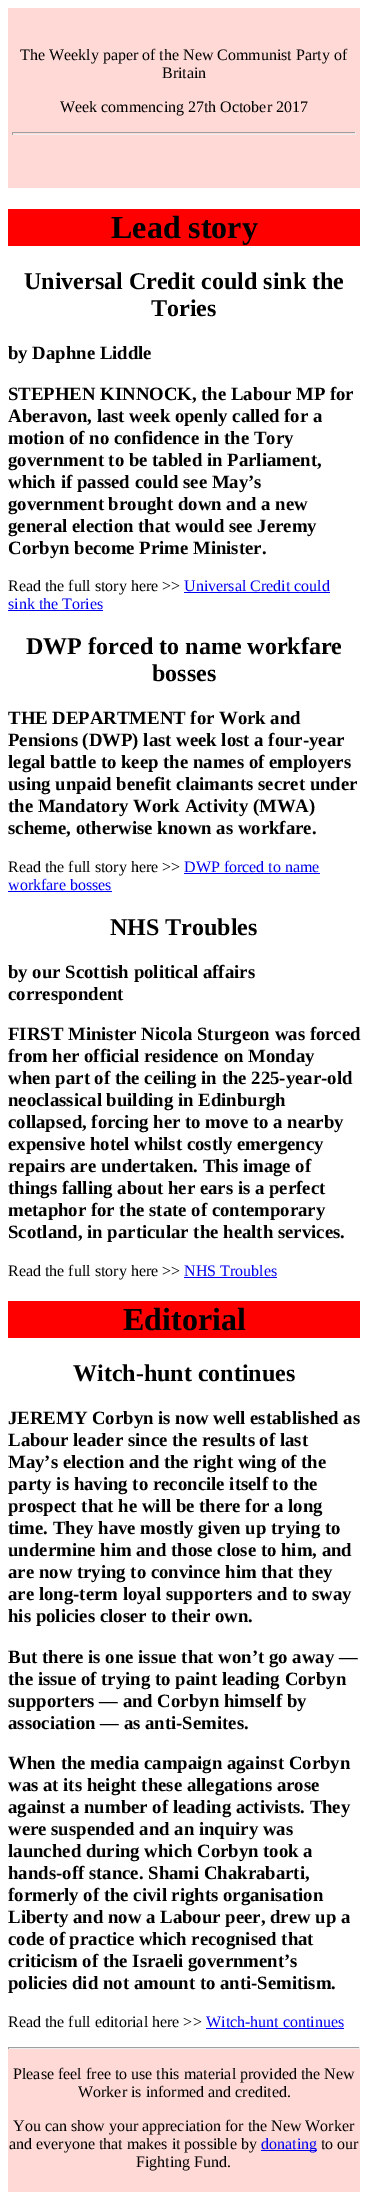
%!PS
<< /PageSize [368 2192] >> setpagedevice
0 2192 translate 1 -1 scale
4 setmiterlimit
1 setgray
0 0 368 2192 rectfill
1 0.851 0.839 setrgbcolor
8 8 352 180 rectfill
/LiberationSerif-Regular [16 0 0 -16 0 0] selectfont
0 setgray
20 60 moveto (The Weekly paper of the New Communist Party of) show
162 78 moveto (Britain) show
60 112 moveto (Week commencing 27th October 2017) show
0.624 setgray
12 132 344 1 rectfill
0.933 setgray
355 132 1 3 rectfill
12 134 344 1 rectfill
0.624 setgray
12 132 1 3 rectfill
1 0 0 setrgbcolor
8 209 352 37 rectfill
/LiberationSerif-Bold [32 0 0 -32 0 0] selectfont
0 setgray
111 238 moveto (Lead story) show
/LiberationSerif-Bold [24 0 0 -24 0 0] selectfont
24 289 moveto (Universal Credit could sink the) show
151 316 moveto (Tories) show
/LiberationSerif-Bold [18.75 0 0 -18.75 0 0] selectfont
8 359 moveto (by Daphne Liddle) show
8 400 moveto (STEPHEN KINNOCK, the Labour MP for) show
8 422 moveto (Aberavon, last week openly called for a) show
8 444 moveto (motion of no confidence in the Tory) show
8 466 moveto (government to be tabled in Parliament,) show
8 488 moveto (which if passed could see May’s) show
8 510 moveto (government brought down and a new) show
8 532 moveto (general election that would see Jeremy) show
8 554 moveto (Corbyn become Prime Minister.) show
/LiberationSerif-Regular [16 0 0 -16 0 0] selectfont
8 591 moveto (Read the full story here >>) show
0 0 0.933 setrgbcolor
184 591 moveto (Universal Credit could) show
184 592 146 1 rectfill
8 609 moveto (sink the Tories) show
8 610 95 1 rectfill
/LiberationSerif-Bold [24 0 0 -24 0 0] selectfont
0 setgray
26 654 moveto (DWP forced to name workfare) show
152 681 moveto (bosses) show
/LiberationSerif-Bold [18.75 0 0 -18.75 0 0] selectfont
8 724 moveto (THE DEPARTMENT for Work and) show
8 746 moveto (Pensions \(DWP\) last week lost a four-year) show
8 768 moveto (legal battle to keep the names of employers) show
8 790 moveto (using unpaid benefit claimants secret under) show
8 812 moveto (the Mandatory Work Activity \(MWA\)) show
8 834 moveto (scheme, otherwise known as workfare.) show
/LiberationSerif-Regular [16 0 0 -16 0 0] selectfont
8 872 moveto (Read the full story here >>) show
0 0 0.933 setrgbcolor
184 872 moveto (DWP forced to name) show
184 873 136 1 rectfill
8 890 moveto (workfare bosses) show
8 891 104 1 rectfill
/LiberationSerif-Bold [24 0 0 -24 0 0] selectfont
0 setgray
110 935 moveto (NHS Troubles) show
/LiberationSerif-Bold [18.75 0 0 -18.75 0 0] selectfont
8 978 moveto (by our Scottish political affairs) show
8 1000 moveto (correspondent) show
8 1040 moveto (FIRST Minister Nicola Sturgeon was forced) show
8 1062 moveto (from her official residence on Monday) show
8 1084 moveto (when part of the ceiling in the 225-year-old) show
8 1106 moveto (neoclassical building in Edinburgh) show
8 1128 moveto (collapsed, forcing her to move to a nearby) show
8 1150 moveto (expensive hotel whilst costly emergency) show
8 1172 moveto (repairs are undertaken. This image of) show
8 1194 moveto (things falling about her ears is a perfect) show
8 1216 moveto (metaphor for the state of contemporary) show
8 1238 moveto (Scotland, in particular the health services.) show
/LiberationSerif-Regular [16 0 0 -16 0 0] selectfont
8 1276 moveto (Read the full story here >>) show
0 0 0.933 setrgbcolor
184 1276 moveto (NHS Troubles) show
184 1277 93 1 rectfill
1 0 0 setrgbcolor
8 1301 352 37 rectfill
/LiberationSerif-Bold [32 0 0 -32 0 0] selectfont
0 setgray
123 1330 moveto (Editorial) show
/LiberationSerif-Bold [24 0 0 -24 0 0] selectfont
73 1381 moveto (Witch-hunt continues) show
/LiberationSerif-Bold [18.75 0 0 -18.75 0 0] selectfont
8 1424 moveto (JEREMY Corbyn is now well established as) show
8 1446 moveto (Labour leader since the results of last) show
8 1468 moveto (May’s election and the right wing of the) show
8 1490 moveto (party is having to reconcile itself to the) show
8 1512 moveto (prospect that he will be there for a long) show
8 1534 moveto (time. They have mostly given up trying to) show
8 1556 moveto (undermine him and those close to him, and) show
8 1578 moveto (are now trying to convince him that they) show
8 1600 moveto (are long-term loyal supporters and to sway) show
8 1622 moveto (his policies closer to their own.) show
8 1663 moveto (But there is one issue that won’t go away —) show
8 1685 moveto (the issue of trying to paint leading Corbyn) show
8 1707 moveto (supporters — and Corbyn himself by) show
8 1729 moveto (association — as anti-Semites.) show
8 1769 moveto (When the media campaign against Corbyn) show
8 1791 moveto (was at its height these allegations arose) show
8 1813 moveto (against a number of leading activists. They) show
8 1835 moveto (were suspended and an inquiry was) show
8 1857 moveto (launched during which Corbyn took a) show
8 1879 moveto (hands-off stance. Shami Chakrabarti,) show
8 1901 moveto (formerly of the civil rights organisation) show
8 1923 moveto (Liberty and now a Labour peer, drew up a) show
8 1945 moveto (code of practice which recognised that) show
8 1967 moveto (criticism of the Israeli government’s) show
8 1989 moveto (policies did not amount to anti-Semitism.) show
/LiberationSerif-Regular [16 0 0 -16 0 0] selectfont
8 2027 moveto (Read the full editorial here >>) show
0 0 0.933 setrgbcolor
206 2027 moveto (Witch-hunt continues) show
206 2028 138 1 rectfill
1 0.851 0.839 setrgbcolor
8 2049 352 143 rectfill
0.624 setgray
8 2047 352 1 rectfill
0.933 setgray
359 2047 1 2 rectfill
8 2048 352 1 rectfill
0.624 setgray
8 2047 1 2 rectfill
0 setgray
13 2079 moveto (Please feel free to use this material provided the New) show
78 2097 moveto (Worker is informed and credited.) show
13 2131 moveto (You can show your appreciation for the New Worker) show
9 2149 moveto (and everyone that makes it possible by) show
0 0 0.933 setrgbcolor
261 2150 56 1 rectfill
261 2149 moveto (donating) show
0 setgray
321 2149 moveto (to our) show
136 2167 moveto (Fighting Fund.) show
showpage
